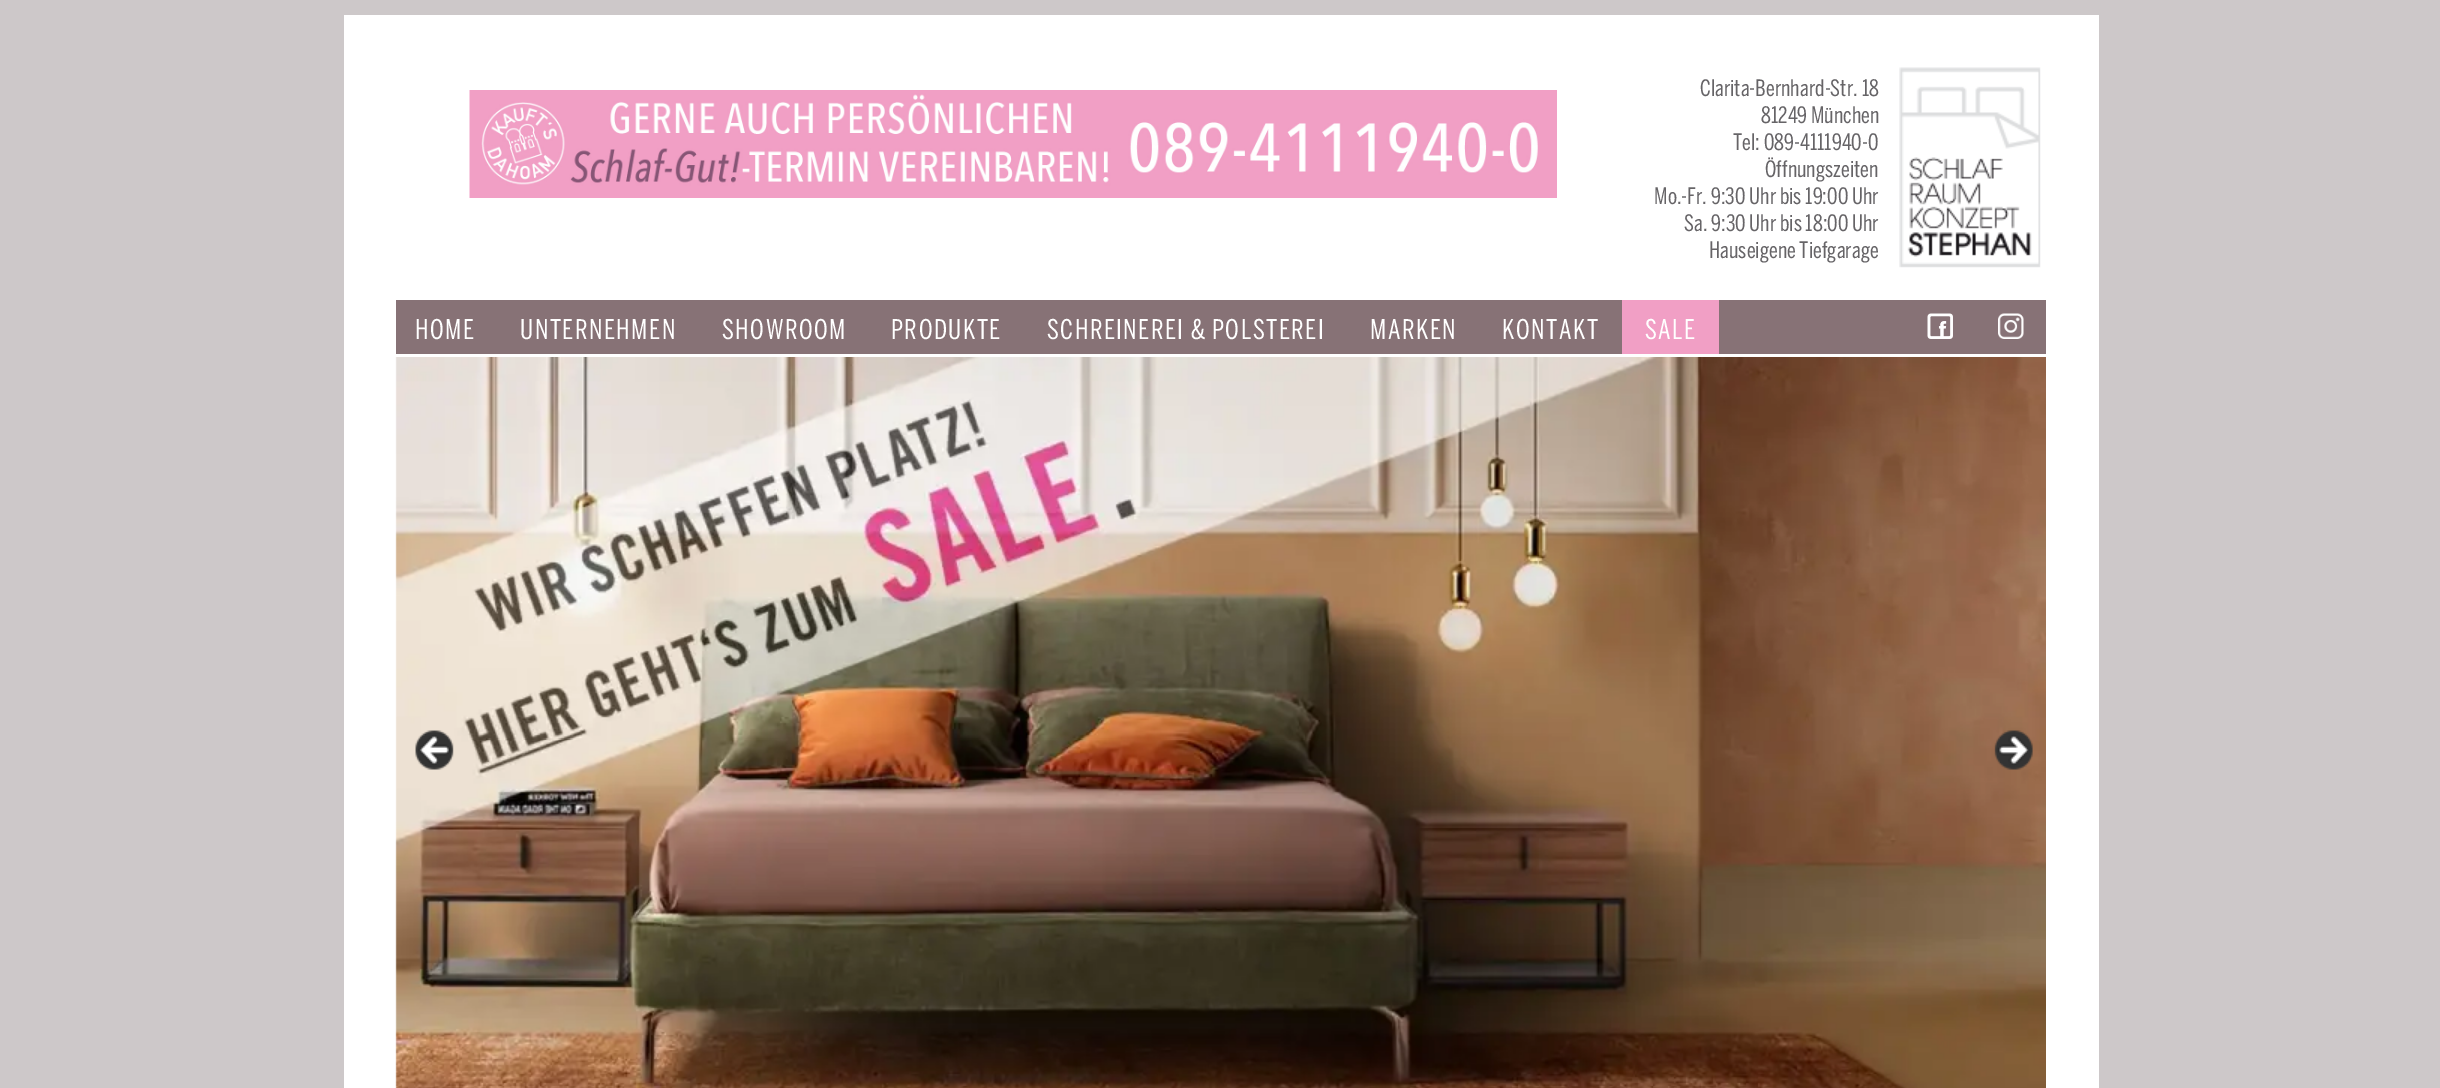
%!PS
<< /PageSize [2440 1088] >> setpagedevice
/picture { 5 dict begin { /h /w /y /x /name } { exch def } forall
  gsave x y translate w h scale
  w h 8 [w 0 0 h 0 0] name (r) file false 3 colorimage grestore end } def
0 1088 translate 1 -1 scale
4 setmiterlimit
0.804 0.784 0.788 setrgbcolor
0 0 2440 1088 rectfill
1 setgray
344 15 1755 1073 rectfill
(img1.rgb) 469 90 1088 108 picture
/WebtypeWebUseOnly-Regular [22.5 0 0 -22.5 0 0] selectfont
0.4 0.392 0.404 setrgbcolor
1700 96 moveto (Clarita-Bernhard-Str. 18) show
1761 123 moveto (81249 München) show
1733 150 moveto (Tel: 089-4111940-0) show
1765 177 moveto (Öffnungszeiten) show
1654 204 moveto (Mo.-Fr. 9:30 Uhr bis 19:00 Uhr) show
1684 231 moveto (Sa. 9:30 Uhr bis 18:00 Uhr) show
1709 258 moveto (Hauseigene Tiefgarage) show
(img2.rgb) 1899 67 142 201 picture
0.529 0.447 0.463 setrgbcolor
396 300 1650 54 rectfill
/WebtypeWebUseOnly-Regular [27 0 0 -27 0 0] selectfont
1 setgray
415 339 moveto 1.5 0 (HOME) ashow
520 339 moveto 1.5 0 (UNTERNEHMEN) ashow
722 339 moveto 1.5 0 (SHOWROOM) ashow
891 339 moveto 1.5 0 (PRODUKTE) ashow
1047 339 moveto 1.5 0 (SCHREINEREI & POLSTEREI) ashow
1370 339 moveto 1.5 0 (MARKEN) ashow
1502 339 moveto 1.5 0 (KONTAKT) ashow
0.945 0.624 0.773 setrgbcolor
1622 300 97 54 rectfill
1 setgray
1645 339 moveto 1.5 0 (SALE) ashow
(img3.rgb) 1927 313 26 26 picture
(img4.rgb) 1998 313 26 26 picture
(img5.rgb) 395 357 1651 731 picture
(img6.rgb) 415 730 39 40 picture
(img7.rgb) 1994 730 39 40 picture
showpage
